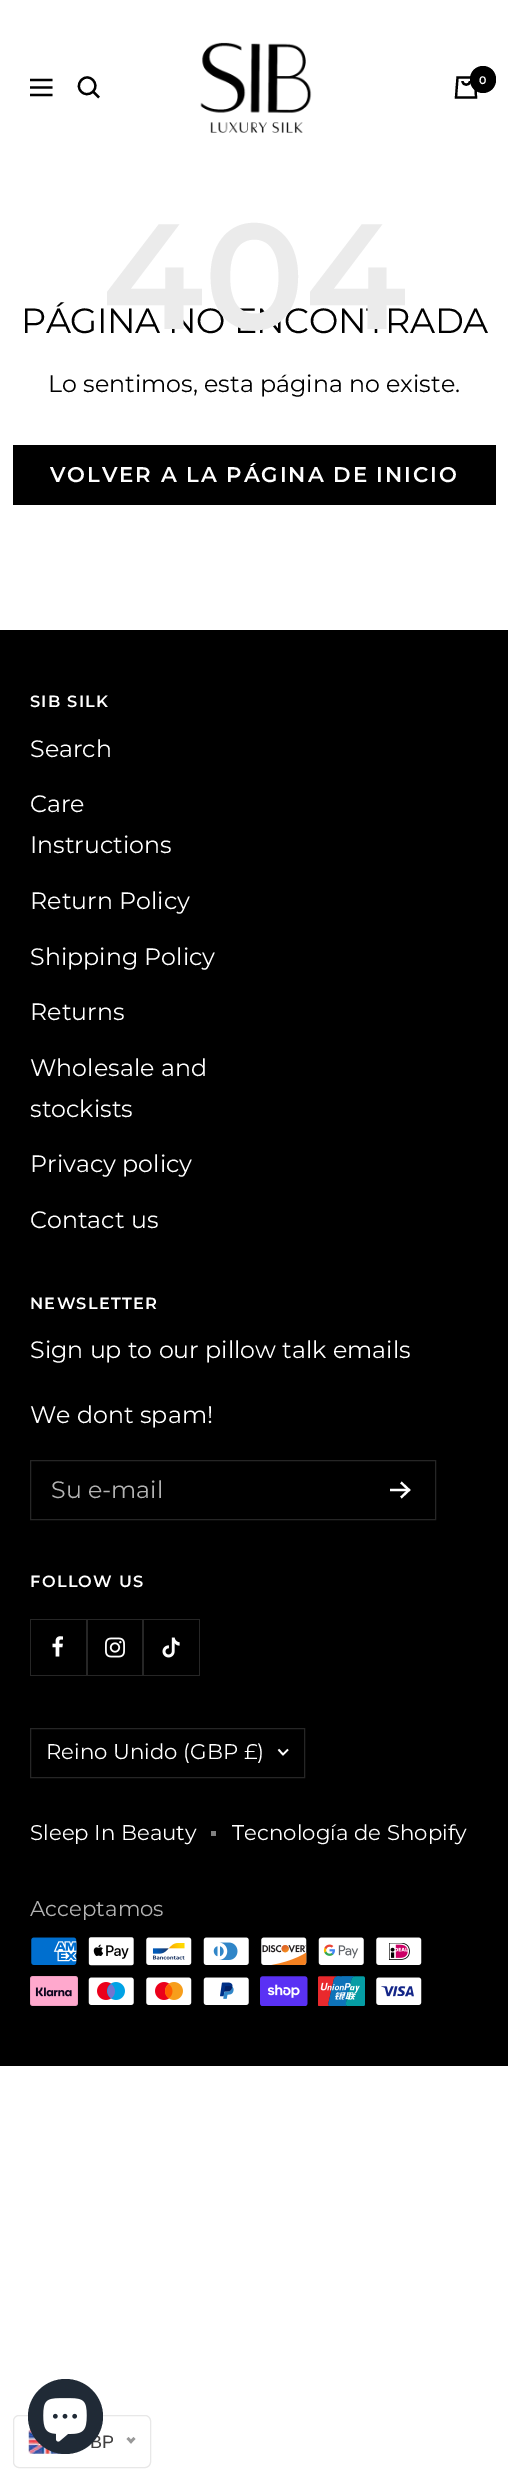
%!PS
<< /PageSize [508 2480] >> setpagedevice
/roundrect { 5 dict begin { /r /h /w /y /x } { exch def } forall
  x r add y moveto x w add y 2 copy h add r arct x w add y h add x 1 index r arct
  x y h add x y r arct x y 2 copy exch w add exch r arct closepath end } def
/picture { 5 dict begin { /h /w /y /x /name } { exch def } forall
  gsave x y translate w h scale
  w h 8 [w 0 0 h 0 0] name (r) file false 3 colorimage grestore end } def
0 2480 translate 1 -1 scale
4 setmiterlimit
1 setgray
0 0 508 2480 rectfill
0 setgray
2.2 setlinewidth
newpath 30 80 moveto 52.5 80 lineto 30 95 moveto 52.5 95 lineto closepath 30 87.5 moveto 52.5 87.5 lineto closepath stroke
newpath 93 91.5 moveto 100.5 84 89 72 81.5 80 curveto 73.5 88 85 99.5 93 91.5 curveto closepath 93 91.5 moveto 99 97.5 lineto stroke
(img1.rgb) 200 42 112 91 picture
newpath 457.5 77.5 moveto 475 77.5 lineto 476 97.5 lineto 456 97.5 lineto closepath 462.5 81 moveto 462.5 86 470 86 470 81 curveto stroke
470 66 26 27 13 roundrect fill
/Montserrat-SemiBold [11 0 0 -11 0 0] selectfont
1 setgray
479 84 moveto (0) show
/Montserrat-Regular [35 0 0 -35 0 0] selectfont
0 setgray
21 333 moveto -0.5 0 (PÁGINA NO ENCONTRADA) ashow
/Montserrat-SemiBold [150 0 0 -150 0 0] selectfont
0.922 setgray
102 329 moveto (404) show
/Montserrat-Regular [23.75 0 0 -23.75 0 0] selectfont
0 setgray
48 392 moveto (Lo sentimos, esta página no existe.) show
13 445 483 60 rectfill
/Montserrat-SemiBold [21.25 0 0 -21.25 0 0] selectfont
1 setgray
50 482 moveto 1.9 0 (VOLVER A LA PÁGINA DE INICIO) ashow
0 setgray
0 630 508 1436 rectfill
/Montserrat-SemiBold [16.25 0 0 -16.25 0 0] selectfont
1 setgray
30 707 moveto 1.25 0 (SIB SILK) ashow
/Montserrat-Regular [23.75 0 0 -23.75 0 0] selectfont
30 757 moveto (Search) show
30 812 moveto (Care) show
30 853 moveto (Instructions) show
30 909 moveto (Return Policy) show
30 965 moveto (Shipping Policy) show
30 1020 moveto (Returns) show
30 1076 moveto (Wholesale and) show
30 1117 moveto (stockists) show
30 1172 moveto (Privacy policy) show
30 1228 moveto (Contact us) show
/Montserrat-SemiBold [16.25 0 0 -16.25 0 0] selectfont
30 1309 moveto 1.25 0 (NEWSLETTER) ashow
/Montserrat-Regular [23.75 0 0 -23.75 0 0] selectfont
30 1358 moveto (Sign up to our pillow talk emails) show
30 1423 moveto (We dont spam!) show
0.149 setgray
1 setlinewidth
30.5 1460.5 405 59 rectstroke
0.702 setgray
51 1498 moveto (Su e-mail) show
1 setgray
2.2 setlinewidth
newpath 390 1490 moveto 409 1490 lineto 401 1482.5 moveto 409 1490 lineto 401 1497.5 lineto stroke
/Montserrat-SemiBold [16.25 0 0 -16.25 0 0] selectfont
30 1587 moveto 1.25 0 (FOLLOW US) ashow
0.149 setgray
newpath 31 1675 moveto 31 1676 lineto 88 1676 lineto 88 1620 lineto 86 1620 lineto 86 1675 lineto closepath fill
30 1675 1 1 rectfill
30 1619 58 1 rectfill
30 1619 1 56 rectfill
(img2.rgb) 52 1636 11 21 picture
newpath 88 1675 moveto 88 1676 lineto 144 1676 lineto 144 1620 lineto 142 1620 lineto 142 1675 lineto closepath fill
86 1619 58 1 rectfill
(img3.rgb) 105 1637 20 21 picture
newpath 144 1675 moveto 144 1676 lineto 200 1676 lineto 200 1620 lineto 199 1620 lineto 199 1675 lineto closepath fill
143 1619 57 1 rectfill
(img4.rgb) 162 1637 18 21 picture
1 setlinewidth
30.5 1728.5 274 49 rectstroke
/Montserrat-Regular [21.25 0 0 -21.25 0 0] selectfont
1 setgray
46 1759 moveto (Reino Unido \(GBP £\)) show
1.7 setlinewidth
newpath 278.5 1749.5 moveto 283 1754.5 lineto 288 1749.5 lineto stroke
30 1840 moveto (Sleep In Beauty) show
0.502 setgray
211 1831 5 5 rectfill
1 setgray
232 1840 moveto (Tecnología de Shopify) show
0.702 setgray
30 1916 moveto (Acceptamos) show
(img5.rgb) 31 1937 46 28 picture
(img6.rgb) 88 1937 46 29 picture
(img7.rgb) 146 1937 46 28 picture
(img8.rgb) 203 1937 46 28 picture
(img9.rgb) 261 1937 46 28 picture
(img10.rgb) 318 1937 46 28 picture
(img11.rgb) 376 1937 46 28 picture
(img12.rgb) 30 1976 48 30 picture
(img13.rgb) 88 1977 46 28 picture
(img14.rgb) 146 1977 46 28 picture
(img15.rgb) 203 1977 46 28 picture
(img16.rgb) 260 1976 48 30 picture
(img17.rgb) 318 1976 47 30 picture
(img18.rgb) 376 1977 46 28 picture
0.91 setgray
1 setlinewidth
13.5 2415.5 137 52 5.5 roundrect stroke
(img20.rgb) 28 2428 37 26 picture
/LiberationSans-Regular [18 0 0 -18 0 0] selectfont
0.251 0.247 0.247 setrgbcolor
90 2448 moveto (BP) show
0.125 0.165 0.212 setrgbcolor
newpath 65.5 2416.5 37.5 0 360 arc closepath fill
(img19.rgb) 43 2398 44 44 picture
0.6 setgray
newpath 133.5 2437 moveto 135.5 2439 lineto 131 2443.5 lineto 129 2441.5 lineto closepath fill
newpath 128.5 2437 moveto 132.5 2441.5 lineto 131 2443.5 lineto 126.5 2439 lineto closepath fill
showpage
